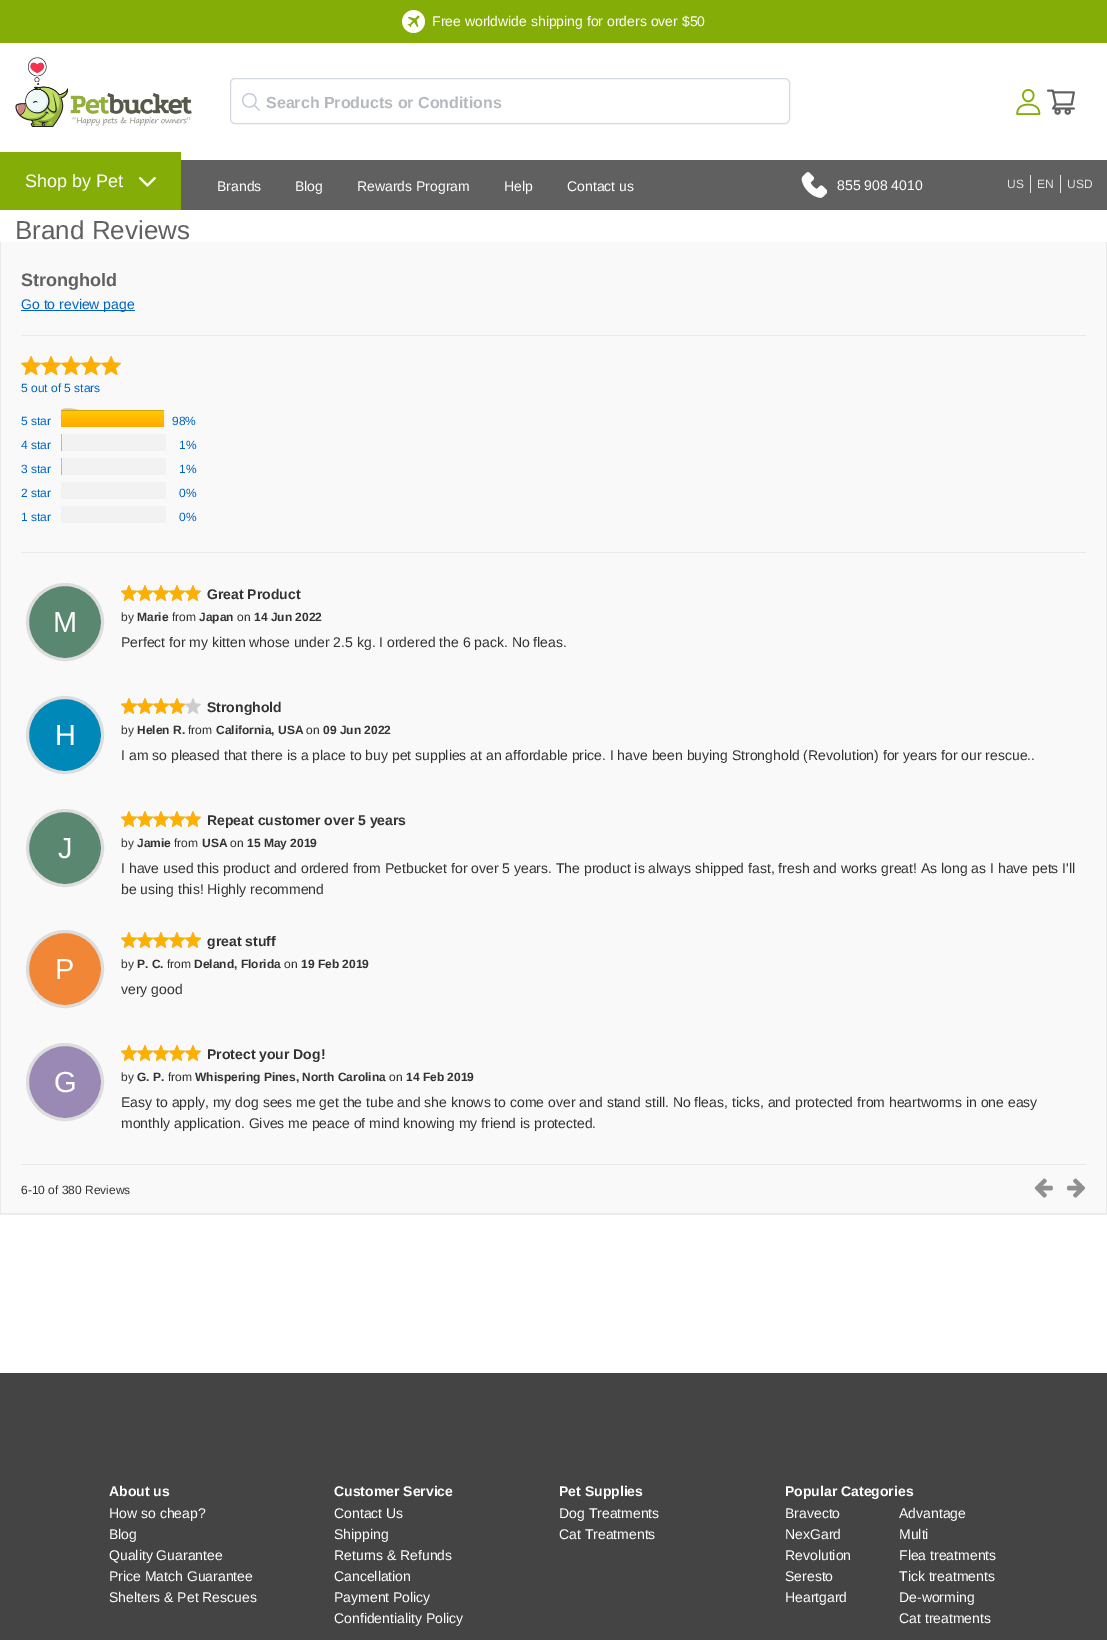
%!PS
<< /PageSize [1107 1640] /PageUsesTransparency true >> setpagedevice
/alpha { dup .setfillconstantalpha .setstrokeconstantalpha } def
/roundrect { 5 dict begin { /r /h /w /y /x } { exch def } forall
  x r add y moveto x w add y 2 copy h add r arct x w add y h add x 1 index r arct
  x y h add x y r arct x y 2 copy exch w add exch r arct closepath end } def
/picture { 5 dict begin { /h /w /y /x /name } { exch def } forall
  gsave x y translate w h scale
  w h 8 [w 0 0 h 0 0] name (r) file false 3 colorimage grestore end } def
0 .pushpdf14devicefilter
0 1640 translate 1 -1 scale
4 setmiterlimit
1 setgray
0 0 1107 1640 rectfill
0.376 setgray
181 160 926 50 rectfill
0.518 0.678 0.031 setrgbcolor
0 0 1107 43 rectfill
(img1.rgb) 402 10 23 23 picture
/LiberationSans-Regular [14 0 0 -14 0 0] selectfont
1 setgray
432 26 moveto (Free worldwide shipping for orders over $50) show
(img2.rgb) 15 57 177 70 picture
0.831 0.847 0.89 setrgbcolor
230.5 78.5 559 45 4.5 roundrect stroke
(img3.rgb) 242 93 18 18 picture
/LiberationSans-Bold [16 0 0 -16 0 0] selectfont
0.71 0.722 0.737 setrgbcolor
266 108 moveto (Search Products or Conditions) show
(img4.rgb) 1016 89 25 26 picture
(img5.rgb) 1047 89 28 26 picture
0.518 0.678 0.031 setrgbcolor
0 152 181 58 rectfill
/LiberationSans-Regular [18 0 0 -18 0 0] selectfont
1 setgray
25 187 moveto (Shop by Pet) show
(img6.rgb) 139 177 17 10 picture
/LiberationSans-Regular [14 0 0 -14 0 0] selectfont
217 191 moveto (Brands) show
295 191 moveto (Blog) show
357 191 moveto (Rewards Program) show
504 191 moveto (Help) show
567 191 moveto (Contact us) show
(img7.rgb) 801 172 26 26 picture
837 190 moveto (855 908 4010) show
0.894 setgray
1030 175 1 18 rectfill
/LiberationSans-Regular [12 0 0 -12 0 0] selectfont
1007 188 moveto (US) show
1060 175 1 18 rectfill
1037 188 moveto (EN) show
1067 188 moveto (USD) show
/LiberationSans-Regular [26 0 0 -26 0 0] selectfont
0.376 setgray
15 239 moveto (Brand Reviews) show
0.976 setgray
1 242 1105 971 rectfill
0.914 setgray
1106 242 1 972 rectfill
0 1213 1107 1 rectfill
0 242 1 972 rectfill
21 335 1065 1 rectfill
/LiberationSans-Bold [18 0 0 -18 0 0] selectfont
0.376 setgray
21 286 moveto (Stronghold) show
0 0.388 0.765 setrgbcolor
21 310 114 1 rectfill
/LiberationSans-Regular [14 0 0 -14 0 0] selectfont
21 309 moveto (Go to review page) show
(img8.rgb) 21 356 100 19 picture
(img9.rgb) 21 356 100 19 picture
/LiberationSans-Regular [12 0 0 -12 0 0] selectfont
21 392 moveto (5 out of 5 stars) show
0.914 setgray
21 552 1065 1 rectfill
0 0.388 0.765 setrgbcolor
21 425 moveto (5 star) show
0.949 setgray
61 410 105 17 1 roundrect fill
gsave 61 410 103 17 1 roundrect clip newpath
<< /ShadingType 2 /ColorSpace /DeviceRGB /Coords [113 410 113 427] /Extend [true true] /Function << /FunctionType 3 /Domain [0 1] /Functions [<< /FunctionType 2 /Domain [0 1] /C0 [1 0.859 0.153] /C1 [1 0.784 0] /N 1 >> << /FunctionType 2 /Domain [0 1] /C0 [1 0.784 0] /C1 [1 0.667 0] /N 1 >>] /Bounds [0.05] /Encode [0 1 0 1] >> >> shfill grestore
0.2 alpha
0 setgray
newpath 62 411 moveto 163 411 lineto 164 411 164 411 164 412 curveto 163 410 lineto 79 410 lineto 78 410 61 405 61 412 curveto 61 411 61 411 62 411 curveto closepath fill
1 alpha
0 0.388 0.765 setrgbcolor
172 425 moveto (98%) show
21 449 moveto (4 star) show
0.949 setgray
61 434 105 17 1 roundrect fill
gsave 61 434 1 17 0.5 roundrect clip newpath
<< /ShadingType 2 /ColorSpace /DeviceRGB /Coords [62 434 62 451] /Extend [true true] /Function << /FunctionType 3 /Domain [0 1] /Functions [<< /FunctionType 2 /Domain [0 1] /C0 [1 0.859 0.153] /C1 [1 0.784 0] /N 1 >> << /FunctionType 2 /Domain [0 1] /C0 [1 0.784 0] /C1 [1 0.667 0] /N 1 >>] /Bounds [0.05] /Encode [0 1 0 1] >> >> shfill grestore
0.796 0.671 0.153 setrgbcolor
newpath 62 435 moveto 62 434 61 434 61 435 curveto closepath fill
0 0.388 0.765 setrgbcolor
179 449 moveto (1%) show
21 473 moveto (3 star) show
0.949 setgray
61 458 105 17 1 roundrect fill
gsave 61 458 1 17 0.5 roundrect clip newpath
<< /ShadingType 2 /ColorSpace /DeviceRGB /Coords [62 458 62 475] /Extend [true true] /Function << /FunctionType 3 /Domain [0 1] /Functions [<< /FunctionType 2 /Domain [0 1] /C0 [1 0.859 0.153] /C1 [1 0.784 0] /N 1 >> << /FunctionType 2 /Domain [0 1] /C0 [1 0.784 0] /C1 [1 0.667 0] /N 1 >>] /Bounds [0.05] /Encode [0 1 0 1] >> >> shfill grestore
0.796 0.671 0.153 setrgbcolor
newpath 62 459 moveto 62 458 61 458 61 459 curveto closepath fill
0 0.388 0.765 setrgbcolor
179 473 moveto (1%) show
21 497 moveto (2 star) show
0.949 setgray
61 482 105 17 1 roundrect fill
0 0.388 0.765 setrgbcolor
179 497 moveto (0%) show
21 521 moveto (1 star) show
0.949 setgray
61 506 105 17 1 roundrect fill
0 0.388 0.765 setrgbcolor
179 521 moveto (0%) show
0.353 0.529 0.439 setrgbcolor
newpath 65 622 37.5 0 360 arc closepath gsave fill grestore
0.867 setgray
3 setlinewidth
stroke
/LiberationSans-Regular [29 0 0 -29 0 0] selectfont
1 setgray
53 632 moveto (M) show
(img10.rgb) 121 585 80 16 picture
(img11.rgb) 121 585 80 16 picture
/LiberationSans-Bold [14 0 0 -14 0 0] selectfont
0.2 setgray
207 599 moveto (Great Product) show
/LiberationSans-Regular [12 0 0 -12 0 0] selectfont
121 621 moveto (by) show
/LiberationSans-Bold [12 0 0 -12 0 0] selectfont
137 621 moveto (Marie) show
/LiberationSans-Regular [12 0 0 -12 0 0] selectfont
172 621 moveto (from) show
/LiberationSans-Bold [12 0 0 -12 0 0] selectfont
199 621 moveto (Japan) show
/LiberationSans-Regular [12 0 0 -12 0 0] selectfont
237 621 moveto (on) show
/LiberationSans-Bold [12 0 0 -12 0 0] selectfont
254 621 moveto (14 Jun 2022) show
/LiberationSans-Regular [14 0 0 -14 0 0] selectfont
121 647 moveto (Perfect for my kitten whose under 2.5 kg. I ordered the 6 pack. No fleas.) show
0 0.533 0.722 setrgbcolor
newpath 65 735 37.5 0 360 arc closepath gsave fill grestore
0.867 setgray
stroke
/LiberationSans-Regular [29 0 0 -29 0 0] selectfont
1 setgray
55 745 moveto (H) show
(img10.rgb) 121 698 80 16 picture
(img12.rgb) 121 698 64 16 picture
/LiberationSans-Bold [14 0 0 -14 0 0] selectfont
0.2 setgray
207 712 moveto (Stronghold) show
/LiberationSans-Regular [12 0 0 -12 0 0] selectfont
121 734 moveto (by) show
/LiberationSans-Bold [12 0 0 -12 0 0] selectfont
137 734 moveto (Helen R.) show
/LiberationSans-Regular [12 0 0 -12 0 0] selectfont
188 734 moveto (from) show
/LiberationSans-Bold [12 0 0 -12 0 0] selectfont
216 734 moveto (California, USA) show
/LiberationSans-Regular [12 0 0 -12 0 0] selectfont
306 734 moveto (on) show
/LiberationSans-Bold [12 0 0 -12 0 0] selectfont
323 734 moveto (09 Jun 2022) show
/LiberationSans-Regular [14 0 0 -14 0 0] selectfont
121 760 moveto (I am so pleased that there is a place to buy pet supplies at an affordable price. I have been buying Stronghold \(Revolution\) for years for our rescue..) show
0.353 0.529 0.439 setrgbcolor
newpath 65 848 37.5 0 360 arc closepath gsave fill grestore
0.867 setgray
stroke
/LiberationSans-Regular [29 0 0 -29 0 0] selectfont
1 setgray
58 858 moveto (J) show
(img10.rgb) 121 811 80 16 picture
(img11.rgb) 121 811 80 16 picture
/LiberationSans-Bold [14 0 0 -14 0 0] selectfont
0.2 setgray
207 825 moveto (Repeat customer over 5 years) show
/LiberationSans-Regular [12 0 0 -12 0 0] selectfont
121 847 moveto (by) show
/LiberationSans-Bold [12 0 0 -12 0 0] selectfont
137 847 moveto (Jamie) show
/LiberationSans-Regular [12 0 0 -12 0 0] selectfont
174 847 moveto (from) show
/LiberationSans-Bold [12 0 0 -12 0 0] selectfont
202 847 moveto (USA) show
/LiberationSans-Regular [12 0 0 -12 0 0] selectfont
230 847 moveto (on) show
/LiberationSans-Bold [12 0 0 -12 0 0] selectfont
247 847 moveto (15 May 2019) show
/LiberationSans-Regular [14 0 0 -14 0 0] selectfont
121 873 moveto (I have used this product and ordered from Petbucket for over 5 years. The product is always shipped fast, fresh and works great! As long as I have pets I'll) show
121 894 moveto (be using this! Highly recommend) show
0.945 0.525 0.212 setrgbcolor
newpath 65 969 37.5 0 360 arc closepath gsave fill grestore
0.867 setgray
stroke
/LiberationSans-Regular [29 0 0 -29 0 0] selectfont
1 setgray
55 979 moveto (P) show
(img10.rgb) 121 932 80 16 picture
(img11.rgb) 121 932 80 16 picture
/LiberationSans-Bold [14 0 0 -14 0 0] selectfont
0.2 setgray
207 946 moveto (great stuff) show
/LiberationSans-Regular [12 0 0 -12 0 0] selectfont
121 968 moveto (by) show
/LiberationSans-Bold [12 0 0 -12 0 0] selectfont
137 968 moveto (P. C.) show
/LiberationSans-Regular [12 0 0 -12 0 0] selectfont
167 968 moveto (from) show
/LiberationSans-Bold [12 0 0 -12 0 0] selectfont
194 968 moveto (Deland, Florida) show
/LiberationSans-Regular [12 0 0 -12 0 0] selectfont
284 968 moveto (on) show
/LiberationSans-Bold [12 0 0 -12 0 0] selectfont
301 968 moveto (19 Feb 2019) show
/LiberationSans-Regular [14 0 0 -14 0 0] selectfont
121 994 moveto (very good) show
0.604 0.537 0.71 setrgbcolor
newpath 65 1082 37.5 0 360 arc closepath gsave fill grestore
0.867 setgray
stroke
/LiberationSans-Regular [29 0 0 -29 0 0] selectfont
1 setgray
54 1092 moveto (G) show
(img10.rgb) 121 1045 80 16 picture
(img11.rgb) 121 1045 80 16 picture
/LiberationSans-Bold [14 0 0 -14 0 0] selectfont
0.2 setgray
207 1059 moveto (Protect your Dog!) show
/LiberationSans-Regular [12 0 0 -12 0 0] selectfont
121 1081 moveto (by) show
/LiberationSans-Bold [12 0 0 -12 0 0] selectfont
137 1081 moveto (G. P.) show
/LiberationSans-Regular [12 0 0 -12 0 0] selectfont
168 1081 moveto (from) show
/LiberationSans-Bold [12 0 0 -12 0 0] selectfont
195 1081 moveto (Whispering Pines, North Carolina) show
/LiberationSans-Regular [12 0 0 -12 0 0] selectfont
389 1081 moveto (on) show
/LiberationSans-Bold [12 0 0 -12 0 0] selectfont
406 1081 moveto (14 Feb 2019) show
/LiberationSans-Regular [14 0 0 -14 0 0] selectfont
121 1107 moveto (Easy to apply, my dog sees me get the tube and she knows to come over and stand still. No fleas, ticks, and protected from heartworms in one easy) show
121 1128 moveto (monthly application. Gives me peace of mind knowing my friend is protected.) show
0.914 setgray
21 1164 1065 1 rectfill
/LiberationSans-Regular [12 0 0 -12 0 0] selectfont
0.2 setgray
21 1194 moveto (6-10 of 380 Reviews) show
(img13.rgb) 1034 1178 19 20 picture
(img14.rgb) 1067 1178 18 20 picture
0.267 setgray
0 1373 1107 267 rectfill
0.929 setgray
0 1214 1107 1 rectfill
/LiberationSans-Bold [14 0 0 -14 0 0] selectfont
1 setgray
109 1496 moveto (About us) show
/LiberationSans-Regular [14 0 0 -14 0 0] selectfont
109 1518 moveto (How so cheap?) show
109 1539 moveto (Blog) show
109 1560 moveto (Quality Guarantee) show
109 1581 moveto (Price Match Guarantee) show
109 1602 moveto (Shelters & Pet Rescues) show
/LiberationSans-Bold [14 0 0 -14 0 0] selectfont
334 1496 moveto (Customer Service) show
/LiberationSans-Regular [14 0 0 -14 0 0] selectfont
334 1518 moveto (Contact Us) show
334 1539 moveto (Shipping) show
334 1560 moveto (Returns & Refunds) show
334 1581 moveto (Cancellation) show
334 1602 moveto (Payment Policy) show
334 1623 moveto (Confidentiality Policy) show
/LiberationSans-Bold [14 0 0 -14 0 0] selectfont
559 1496 moveto (Pet Supplies) show
/LiberationSans-Regular [14 0 0 -14 0 0] selectfont
559 1518 moveto (Dog Treatments) show
559 1539 moveto (Cat Treatments) show
/LiberationSans-Bold [14 0 0 -14 0 0] selectfont
785 1496 moveto (Popular Categories) show
/LiberationSans-Regular [14 0 0 -14 0 0] selectfont
785 1518 moveto (Bravecto) show
899 1518 moveto (Advantage) show
899 1539 moveto (Multi) show
785 1539 moveto (NexGard) show
785 1560 moveto (Revolution) show
899 1560 moveto (Flea treatments) show
785 1581 moveto (Seresto) show
899 1581 moveto (Tick treatments) show
785 1602 moveto (Heartgard) show
899 1602 moveto (De-worming) show
899 1623 moveto (Cat treatments) show
.poppdf14devicefilter showpage
